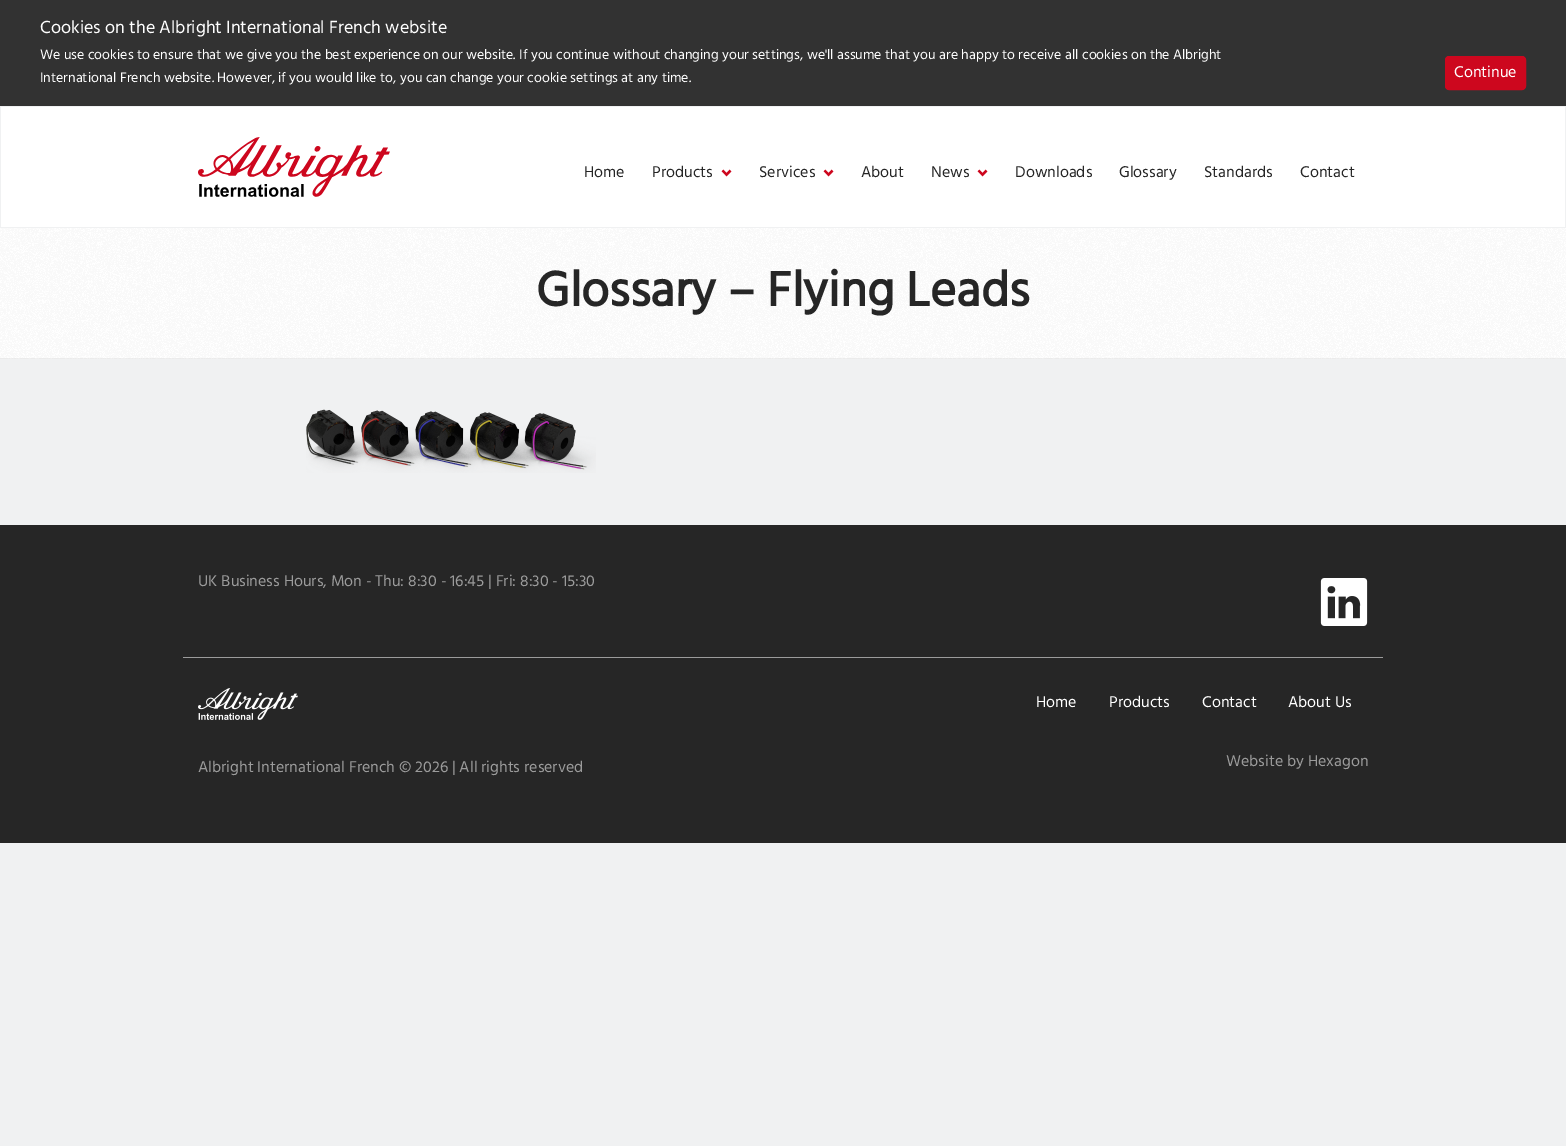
%!PS
<< /PageSize [1566 1146] /PageUsesTransparency true >> setpagedevice
/alpha { dup .setfillconstantalpha .setstrokeconstantalpha } def
/roundrect { 5 dict begin { /r /h /w /y /x } { exch def } forall
  x r add y moveto x w add y 2 copy h add r arct x w add y h add x 1 index r arct
  x y h add x y r arct x y 2 copy exch w add exch r arct closepath end } def
/picture { 5 dict begin { /h /w /y /x /name } { exch def } forall
  gsave x y translate w h scale
  w h 8 [w 0 0 h 0 0] name (r) file false 3 colorimage grestore end } def
0 .pushpdf14devicefilter
0 1146 translate 1 -1 scale
4 setmiterlimit
0.941 0.945 0.949 setrgbcolor
0 0 1566 1146 rectfill
0.196 setgray
0 0 1566 106 rectfill
/Hind-Regular [18 0 0 -18 0 0] selectfont
1 setgray
40 33 moveto (Cookies on the Albright International French website) show
/Hind-Regular [14 0 0 -14 0 0] selectfont
40 59 moveto (We use cookies to ensure that we give you the best experience on our website. If you continue without changing your settings, we'll assume that you are happy to receive all cookies on the Albright) show
40 82 moveto (International French website. However, if you would like to, you can change your cookie settings at any time.) show
0.804 0.027 0.118 setrgbcolor
1445.5 56.5 80 33 3.5 roundrect gsave fill grestore
stroke
/Hind-Regular [16 0 0 -16 0 0] selectfont
1 setgray
1454 77 moveto (Continue) show
1 107 1564 120 rectfill
(img1.rgb) 198 137 192 60 picture
0.149 setgray
584 177 moveto (Home) show
652 177 moveto (Products) show
(img2.rgb) 721 169 11 8 picture
759 177 moveto (Services) show
(img2.rgb) 823 169 11 8 picture
861 177 moveto (About) show
931 177 moveto (News) show
(img2.rgb) 977 169 11 8 picture
1015 177 moveto (Downloads) show
1119 177 moveto (Glossary) show
1204 177 moveto (Standards) show
1300 177 moveto (Contact) show
(img3.rgb) 0 228 1566 131 picture
0.15 alpha
0.608 setgray
0 358 1566 1 rectfill
/Hind-Bold [50 0 0 -50 0 0] selectfont
1 alpha
0.149 setgray
536 306 moveto (Glossary – Flying Leads) show
(img4.rgb) 306 409 290 64 picture
0 525 1566 318 rectfill
/Hind-Regular [16 0 0 -16 0 0] selectfont
0.608 setgray
198 586 moveto (UK Business Hours, Mon - Thu: 8:30 - 16:45 | Fri: 8:30 - 15:30) show
(img5.rgb) 1320 578 48 48 picture
183 657 1200 1 rectfill
(img6.rgb) 198 688 100 32 picture
1 setgray
1036 707 moveto (Home) show
1109 707 moveto (Products) show
1202 707 moveto (Contact) show
1288 707 moveto (About Us) show
0.608 setgray
198 772 moveto (Albright International French © 2026 | All rights reserved) show
1226 766 moveto (Website by Hexagon) show
.poppdf14devicefilter showpage
